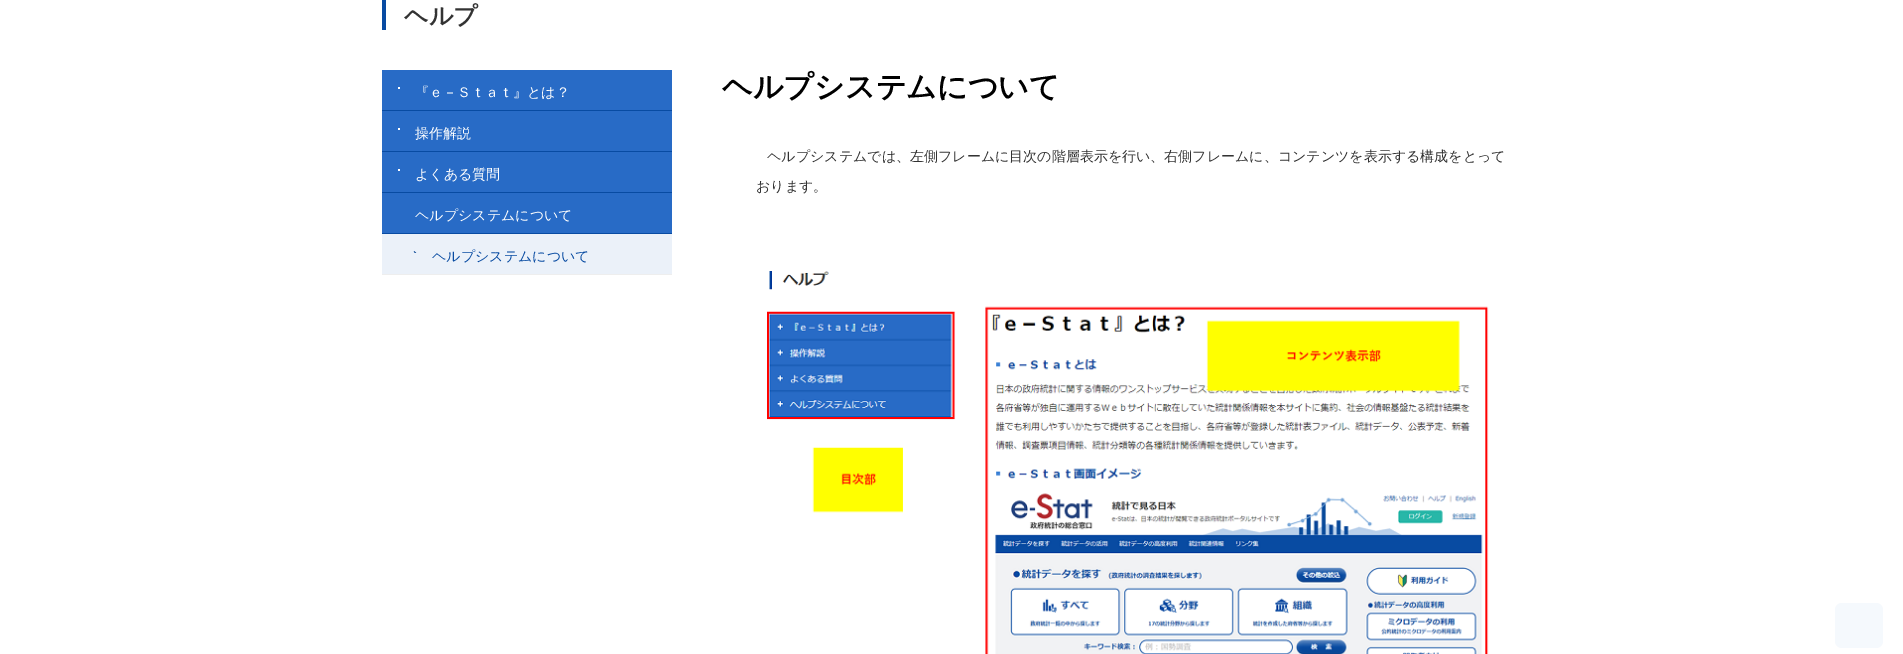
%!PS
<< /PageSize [1903 654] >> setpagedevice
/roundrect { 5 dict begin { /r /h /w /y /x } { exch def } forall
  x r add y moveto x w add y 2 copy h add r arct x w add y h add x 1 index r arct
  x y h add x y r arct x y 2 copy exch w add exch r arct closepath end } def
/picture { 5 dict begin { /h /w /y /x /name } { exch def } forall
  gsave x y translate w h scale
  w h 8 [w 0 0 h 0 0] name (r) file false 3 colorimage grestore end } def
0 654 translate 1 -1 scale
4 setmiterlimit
1 setgray
0 0 1903 654 rectfill
0.031 0.294 0.635 setrgbcolor
382 0 4 30 rectfill
/WenQuanYiZenHei-Bold [24 0 0 -24 0 0] selectfont
0.2 setgray
404 24 moveto (ヘルプ) show
0.157 0.42 0.776 setrgbcolor
382 70 290 40 rectfill
0.031 0.294 0.635 setrgbcolor
382 110 290 1 rectfill
1 setgray
398 87 2 2 rectfill
/WenQuanYiZenHei-Medium [14 0 0 -14 0 0] selectfont
415 97 moveto (『ｅ－Ｓｔａｔ』とは？) show
0.157 0.42 0.776 setrgbcolor
382 111 290 40 rectfill
0.031 0.294 0.635 setrgbcolor
382 151 290 1 rectfill
1 setgray
398 128 2 2 rectfill
415 138 moveto (操作解説) show
0.157 0.42 0.776 setrgbcolor
382 152 290 40 rectfill
0.031 0.294 0.635 setrgbcolor
382 192 290 1 rectfill
1 setgray
398 169 2 2 rectfill
415 179 moveto (よくある質問) show
0.157 0.42 0.776 setrgbcolor
382 193 290 40 rectfill
0.031 0.294 0.635 setrgbcolor
382 233 290 1 rectfill
1 setgray
415 220 moveto (ヘルプシステムについて) show
0.922 0.945 0.976 setrgbcolor
382 234 290 40 rectfill
0.933 setgray
382 274 290 1 rectfill
(img1.rgb) 413 251 4 2 picture
0.031 0.294 0.635 setrgbcolor
432 261 moveto (ヘルプシステムについて) show
/WenQuanYiZenHei-Bold [30 0 0 -30 0 0] selectfont
0 setgray
722 97 moveto (ヘルプシステムについて) show
/WenQuanYiZenHei-Medium [14 0 0 -14 0 0] selectfont
0.2 setgray
767 161 moveto (ヘルプシステムでは、左側フレームに目次の階層表示を行い、右側フレームに、コンテンツを表示する構成をとって) show
756 191 moveto (おります。) show
(img2.rgb) 767 271 722 383 picture
0.961 0.976 0.992 setrgbcolor
1835 603 48 45 7 roundrect fill
showpage
